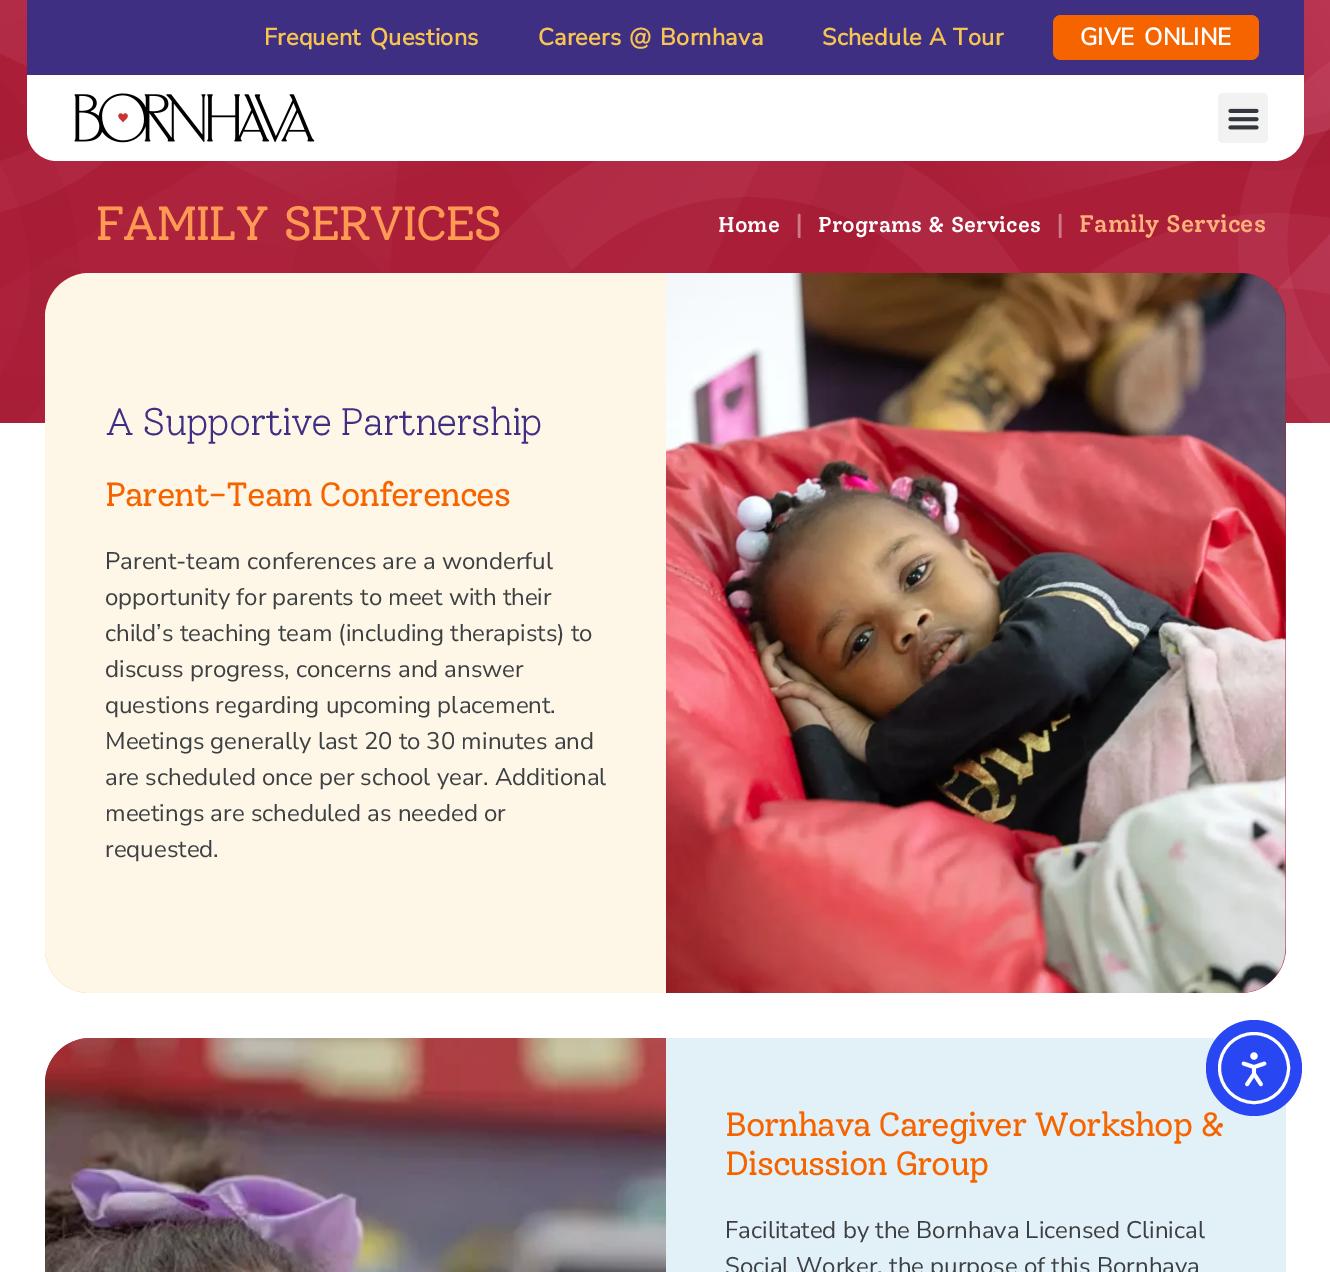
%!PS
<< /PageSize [1330 1272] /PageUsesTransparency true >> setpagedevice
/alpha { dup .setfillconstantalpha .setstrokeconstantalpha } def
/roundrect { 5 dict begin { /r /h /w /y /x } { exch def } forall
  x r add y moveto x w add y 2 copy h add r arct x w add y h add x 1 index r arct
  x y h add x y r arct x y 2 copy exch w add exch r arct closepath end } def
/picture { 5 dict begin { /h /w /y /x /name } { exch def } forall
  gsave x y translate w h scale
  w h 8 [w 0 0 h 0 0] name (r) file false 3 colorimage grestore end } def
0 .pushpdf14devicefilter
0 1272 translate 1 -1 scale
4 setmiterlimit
1 setgray
0 0 1330 1272 rectfill
(img1.rgb) 0 0 1330 423 picture
0.243 0.184 0.514 setrgbcolor
27 0 1277 75 rectfill
/NunitoSans-Bold [23.5 0 0 -23.5 0 0] selectfont
0.973 0.769 0.318 setrgbcolor
264 45 moveto 3 0 32 0.25 0 (Frequent Questions) awidthshow
538 45 moveto 2 0 32 0.25 0 (Careers @ Bornhava) awidthshow
822 45 moveto 1 0 32 0.25 0 (Schedule A Tour) awidthshow
0.965 0.392 0 setrgbcolor
1053 15 206 45 8 roundrect fill
/NunitoSans-Bold [24 0 0 -24 0 0] selectfont
1 setgray
1080 45 moveto 4 0 32 (GIVE ONLINE) widthshow
newpath 27 75 moveto 1304 75 lineto 1304 131 lineto 1304 147.5 1290.5 161 1274 161 curveto 57 161 lineto 40.5 161 27 147.5 27 131 curveto closepath fill
(img2.rgb) 74 93 241 50 picture
0.949 setgray
1218 93 50 50 5 roundrect fill
(img3.rgb) 1228 108 31 22 picture
/Solway-Regular [48 0 0 -48 0 0] selectfont
1 0.6 0.329 setrgbcolor
95 240 moveto 6 0 32 -2.75 0 (FAMILY SERVICES) awidthshow
/Solway-Medium [21.6 0 0 -21.6 0 0] selectfont
1 setgray
718 232 moveto (Home) show
/Solway-Medium [24 0 0 -24 0 0] selectfont
0.812 0.478 0.537 setrgbcolor
795 232 moveto (|) show
/Solway-Medium [21.6 0 0 -21.6 0 0] selectfont
1 setgray
818 232 moveto (Programs & Services) show
/Solway-Medium [24 0 0 -24 0 0] selectfont
0.812 0.478 0.537 setrgbcolor
1056 232 moveto (|) show
1 0.69 0.482 setrgbcolor
1079 232 moveto (Family Services) show
0.973 0.698 0.094 setrgbcolor
newpath 90 273 moveto 666 273 lineto 666 993 lineto 90 993 lineto 65 993 45 973 45 948 curveto 45 318 lineto 45 293 65 273 90 273 curveto closepath fill
0.9 alpha
1 setgray
newpath 90 273 moveto 666 273 lineto 666 993 lineto 90 993 lineto 65 993 45 973 45 948 curveto 45 318 lineto 45 293 65 273 90 273 curveto closepath fill
/Solway-Light [38.4 0 0 -38.4 0 0] selectfont
1 alpha
0.243 0.184 0.514 setrgbcolor
105 435 moveto -1.2 0 (A Supportive Partnership) ashow
/Solway-Regular [33.6 0 0 -33.6 0 0] selectfont
0.965 0.392 0 setrgbcolor
105 506 moveto -1.2 0 (Parent-Team Conferences) ashow
/NunitoSans-Regular [24 0 0 -24 0 0] selectfont
0.239 0.251 0.259 setrgbcolor
105 569 moveto (Parent-team conferences are a wonderful) show
105 605 moveto (opportunity for parents to meet with their) show
105 641 moveto (child’s teaching team \(including therapists\) to) show
105 677 moveto (discuss progress, concerns and answer) show
105 713 moveto (questions regarding upcoming placement.) show
105 749 moveto (Meetings generally last 20 to 30 minutes and) show
105 785 moveto (are scheduled once per school year. Additional) show
105 821 moveto (meetings are scheduled as needed or) show
105 857 moveto (requested.) show
0.671 0.118 0.216 setrgbcolor
newpath 666 273 moveto 1241 273 lineto 1266 273 1286 293 1286 318 curveto 1286 948 lineto 1286 973 1266 993 1241 993 curveto 666 993 lineto closepath fill
(img4.rgb) 666 273 620 720 picture
newpath 90 1038 moveto 666 1038 lineto 666 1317 lineto 90 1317 lineto 65 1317 45 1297 45 1272 curveto 45 1083 lineto 45 1058 65 1038 90 1038 curveto closepath fill
(img5.rgb) 45 1038 621 234 picture
0.122 0.58 0.78 setrgbcolor
666 1038 620 234 rectfill
0.87 alpha
1 setgray
666 1038 620 234 rectfill
/Solway-Regular [33.6 0 0 -33.6 0 0] selectfont
1 alpha
0.965 0.392 0 setrgbcolor
725 1136 moveto -1.2 0 (Bornhava Caregiver Workshop &) ashow
725 1175 moveto -1.2 0 (Discussion Group) ashow
/NunitoSans-Regular [24 0 0 -24 0 0] selectfont
0.239 0.251 0.259 setrgbcolor
725 1238 moveto (Facilitated by the Bornhava Licensed Clinical) show
725 1274 moveto (Social Worker, the purpose of this Bornhava) show
0.157 0.278 0.953 setrgbcolor
newpath 1254 1068 48 0 360 arc closepath fill
1 setgray
3 setlinewidth
newpath 1254 1068 34.5 0 360 arc closepath stroke
(img6.rgb) 1241 1052 26 35 picture
.poppdf14devicefilter showpage
